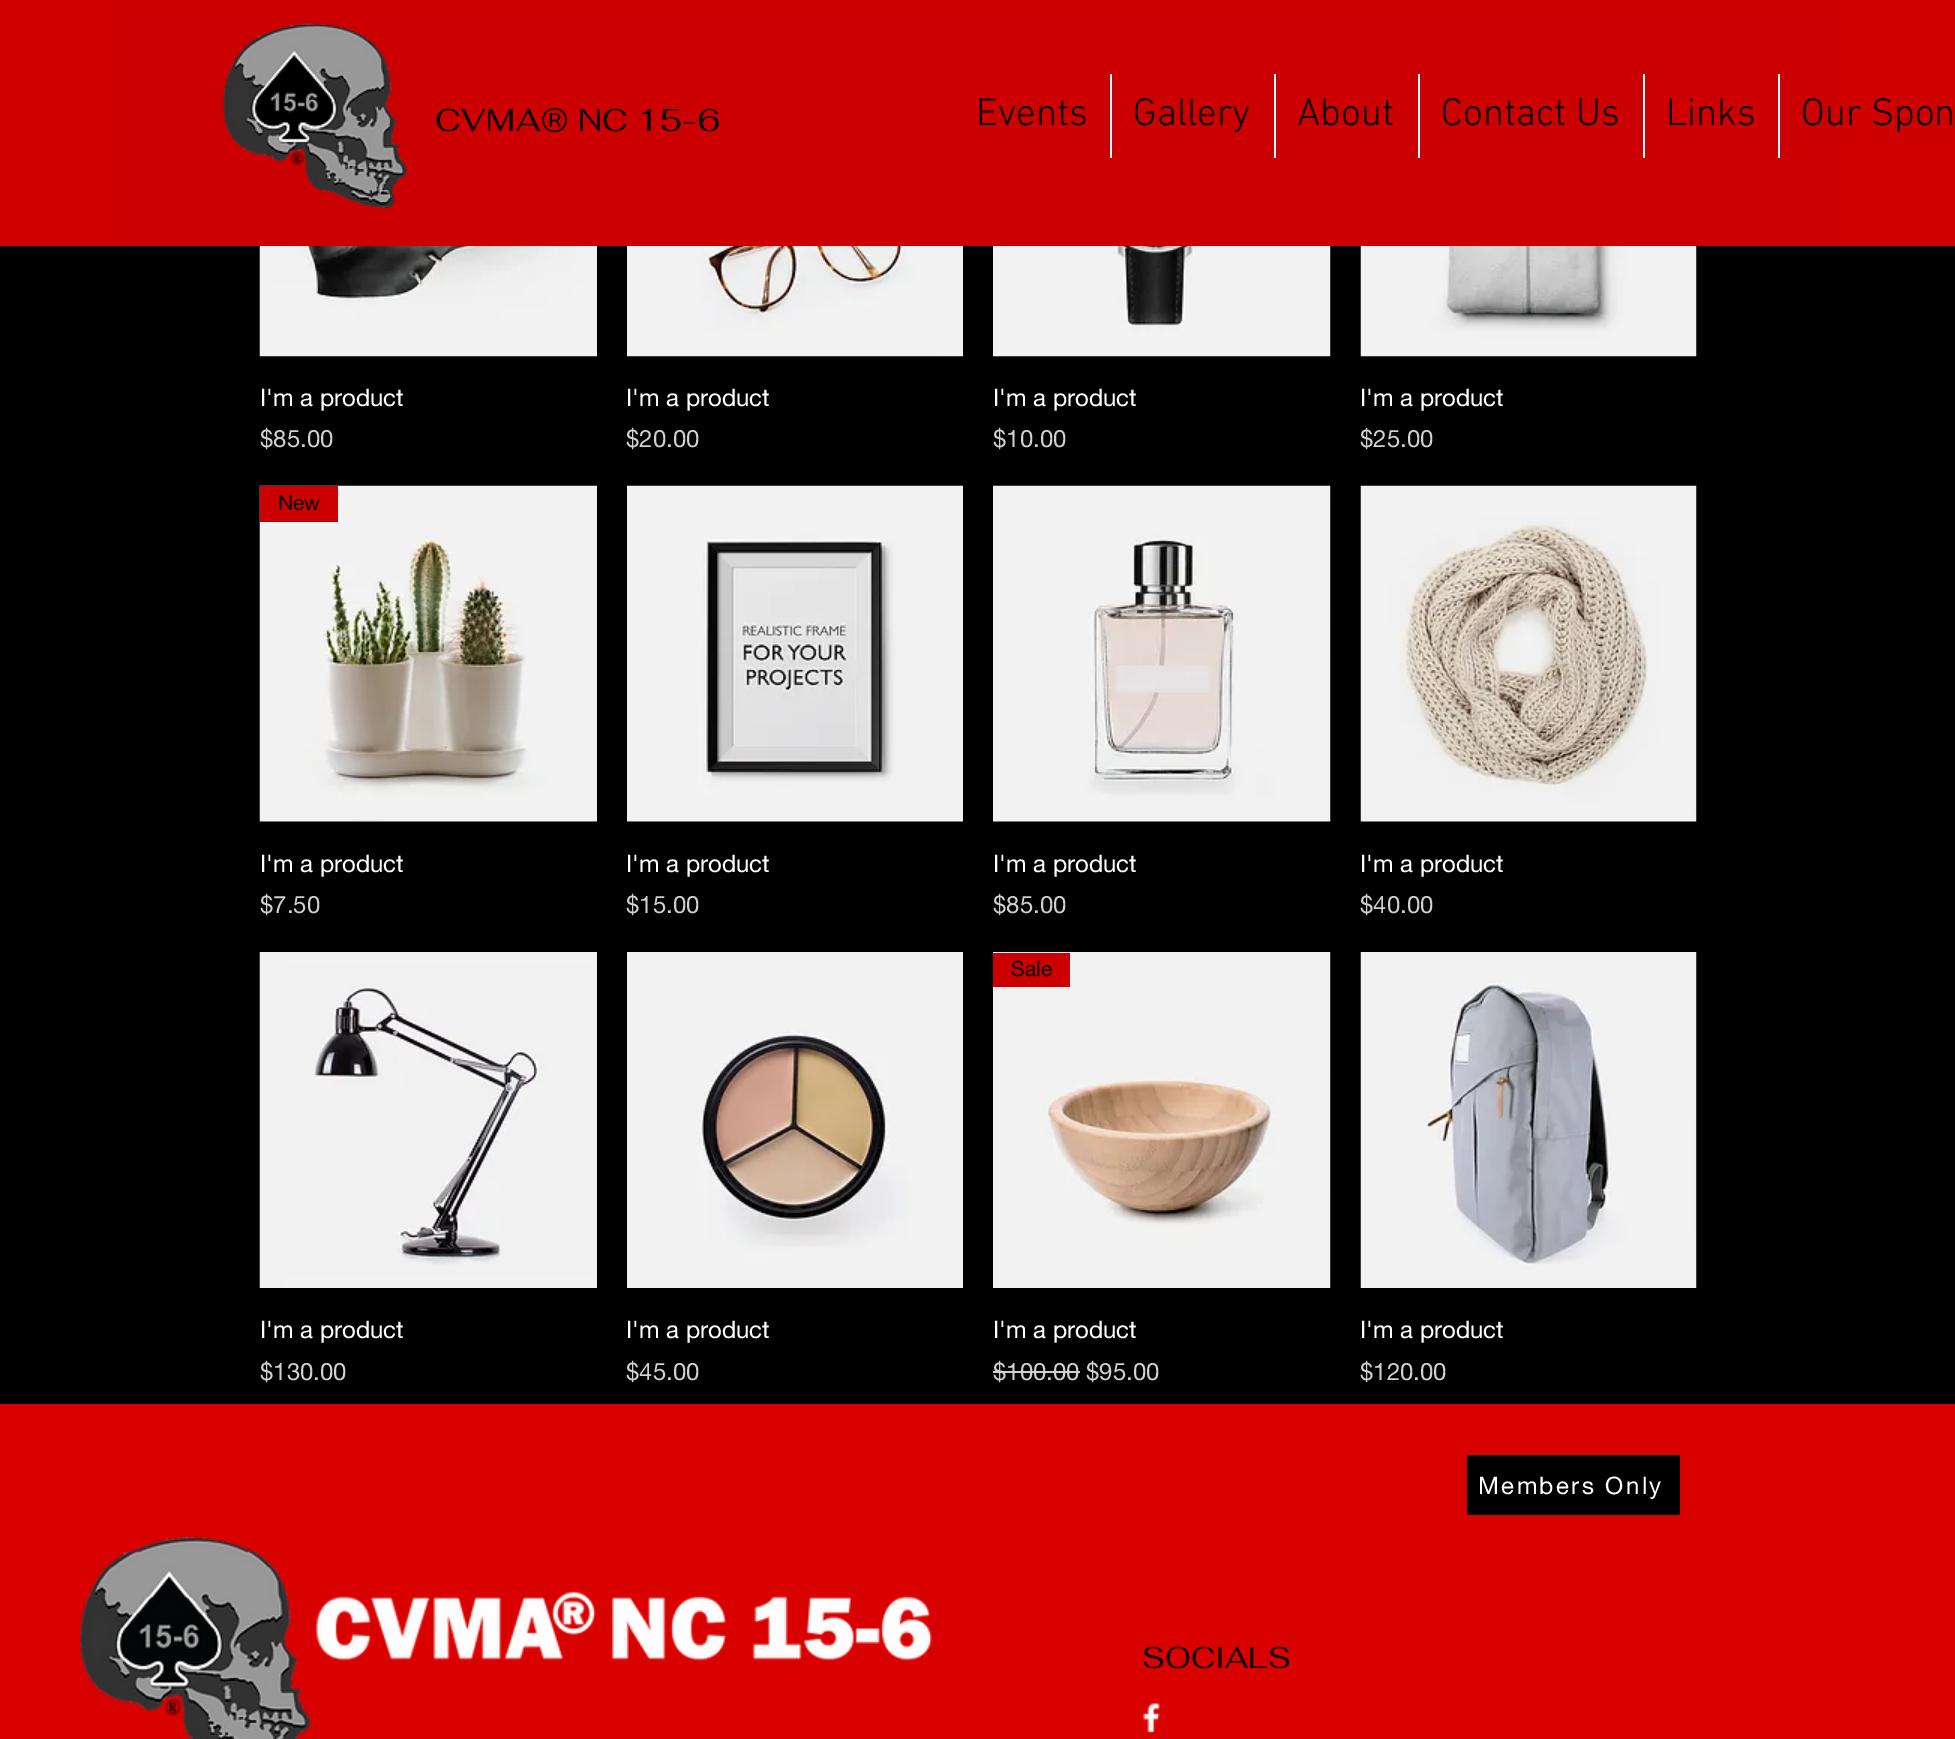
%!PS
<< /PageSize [1955 1739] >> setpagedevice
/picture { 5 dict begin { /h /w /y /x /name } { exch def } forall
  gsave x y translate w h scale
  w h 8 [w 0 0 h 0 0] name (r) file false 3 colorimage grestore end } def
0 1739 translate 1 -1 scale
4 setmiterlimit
0 setgray
0 0 1955 1739 rectfill
0.812 0 0 setrgbcolor
0 0 1955 246 rectfill
0.8 0 0 setrgbcolor
120 8 1716 238 rectfill
(img1.rgb) 223 23 184 185 picture
/Fahkwang-Regular [31.5 0 0 -31.5 0 0] selectfont
0 setgray
435 131 moveto 0.6 0 (CVMA® NC 15-6) ashow
/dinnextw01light-Light [39 0 0 -39 0 0] selectfont
976 125 moveto (Events) show
1 setgray
1110 74 2 84 rectfill
0 setgray
1133 125 moveto (Gallery) show
1 setgray
1274 74 2 84 rectfill
0 setgray
1297 125 moveto (About) show
1 setgray
1418 74 2 84 rectfill
0 setgray
1441 125 moveto (Contact Us) show
1 setgray
1643 74 2 84 rectfill
0 setgray
1666 125 moveto (Links) show
1 setgray
1778 74 2 84 rectfill
0 setgray
1801 125 moveto (Our Spon) show
(img2.rgb) 259 246 338 111 picture
/helveticaneue-Regular [24 0 0 -24 0 0] selectfont
1 setgray
260 406 moveto (I'm a product) show
0.82 setgray
260 447 moveto ($85.00) show
(img3.rgb) 627 246 336 111 picture
1 setgray
626 406 moveto (I'm a product) show
0.82 setgray
626 447 moveto ($20.00) show
(img4.rgb) 993 246 338 111 picture
1 setgray
993 406 moveto (I'm a product) show
0.82 setgray
993 447 moveto ($10.00) show
(img5.rgb) 1360 246 337 111 picture
1 setgray
1360 406 moveto (I'm a product) show
0.82 setgray
1360 447 moveto ($25.00) show
(img6.rgb) 259 485 338 337 picture
0.8 0 0 setrgbcolor
260 486 78 36 rectfill
/helveticaneue-Regular [21 0 0 -21 0 0] selectfont
0 setgray
278 510 moveto (New) show
/helveticaneue-Regular [24 0 0 -24 0 0] selectfont
1 setgray
260 872 moveto (I'm a product) show
0.82 setgray
260 913 moveto ($7.50) show
(img7.rgb) 627 485 336 337 picture
1 setgray
626 872 moveto (I'm a product) show
0.82 setgray
626 913 moveto ($15.00) show
(img8.rgb) 993 485 338 337 picture
1 setgray
993 872 moveto (I'm a product) show
0.82 setgray
993 913 moveto ($85.00) show
(img9.rgb) 1360 485 337 337 picture
1 setgray
1360 872 moveto (I'm a product) show
0.82 setgray
1360 913 moveto ($40.00) show
(img10.rgb) 259 952 338 336 picture
1 setgray
260 1338 moveto (I'm a product) show
0.82 setgray
260 1380 moveto ($130.00) show
(img11.rgb) 627 952 336 336 picture
1 setgray
626 1338 moveto (I'm a product) show
0.82 setgray
626 1380 moveto ($45.00) show
(img12.rgb) 993 952 338 336 picture
0.8 0 0 setrgbcolor
993 953 77 34 rectfill
/helveticaneue-Regular [21 0 0 -21 0 0] selectfont
0 setgray
1011 976 moveto (Sale) show
/helveticaneue-Regular [24 0 0 -24 0 0] selectfont
1 setgray
993 1338 moveto (I'm a product) show
0.82 setgray
993 1380 moveto ($100.00) show
993 1371 87 2 rectfill
1086 1380 moveto ($95.00) show
(img13.rgb) 1360 952 337 336 picture
1 setgray
1360 1338 moveto (I'm a product) show
0.82 setgray
1360 1380 moveto ($120.00) show
0.851 0 0 setrgbcolor
0 1404 1955 335 rectfill
0 setgray
1467 1455 213 60 rectfill
1 setgray
1478 1494 moveto 2.4 0 (Members Only) ashow
(img14.rgb) 80 1537 852 202 picture
/Fahkwang-Regular [30 0 0 -30 0 0] selectfont
0 setgray
1142 1668 moveto (SOCIALS) show
(img15.rgb) 1142 1703 18 30 picture
showpage
